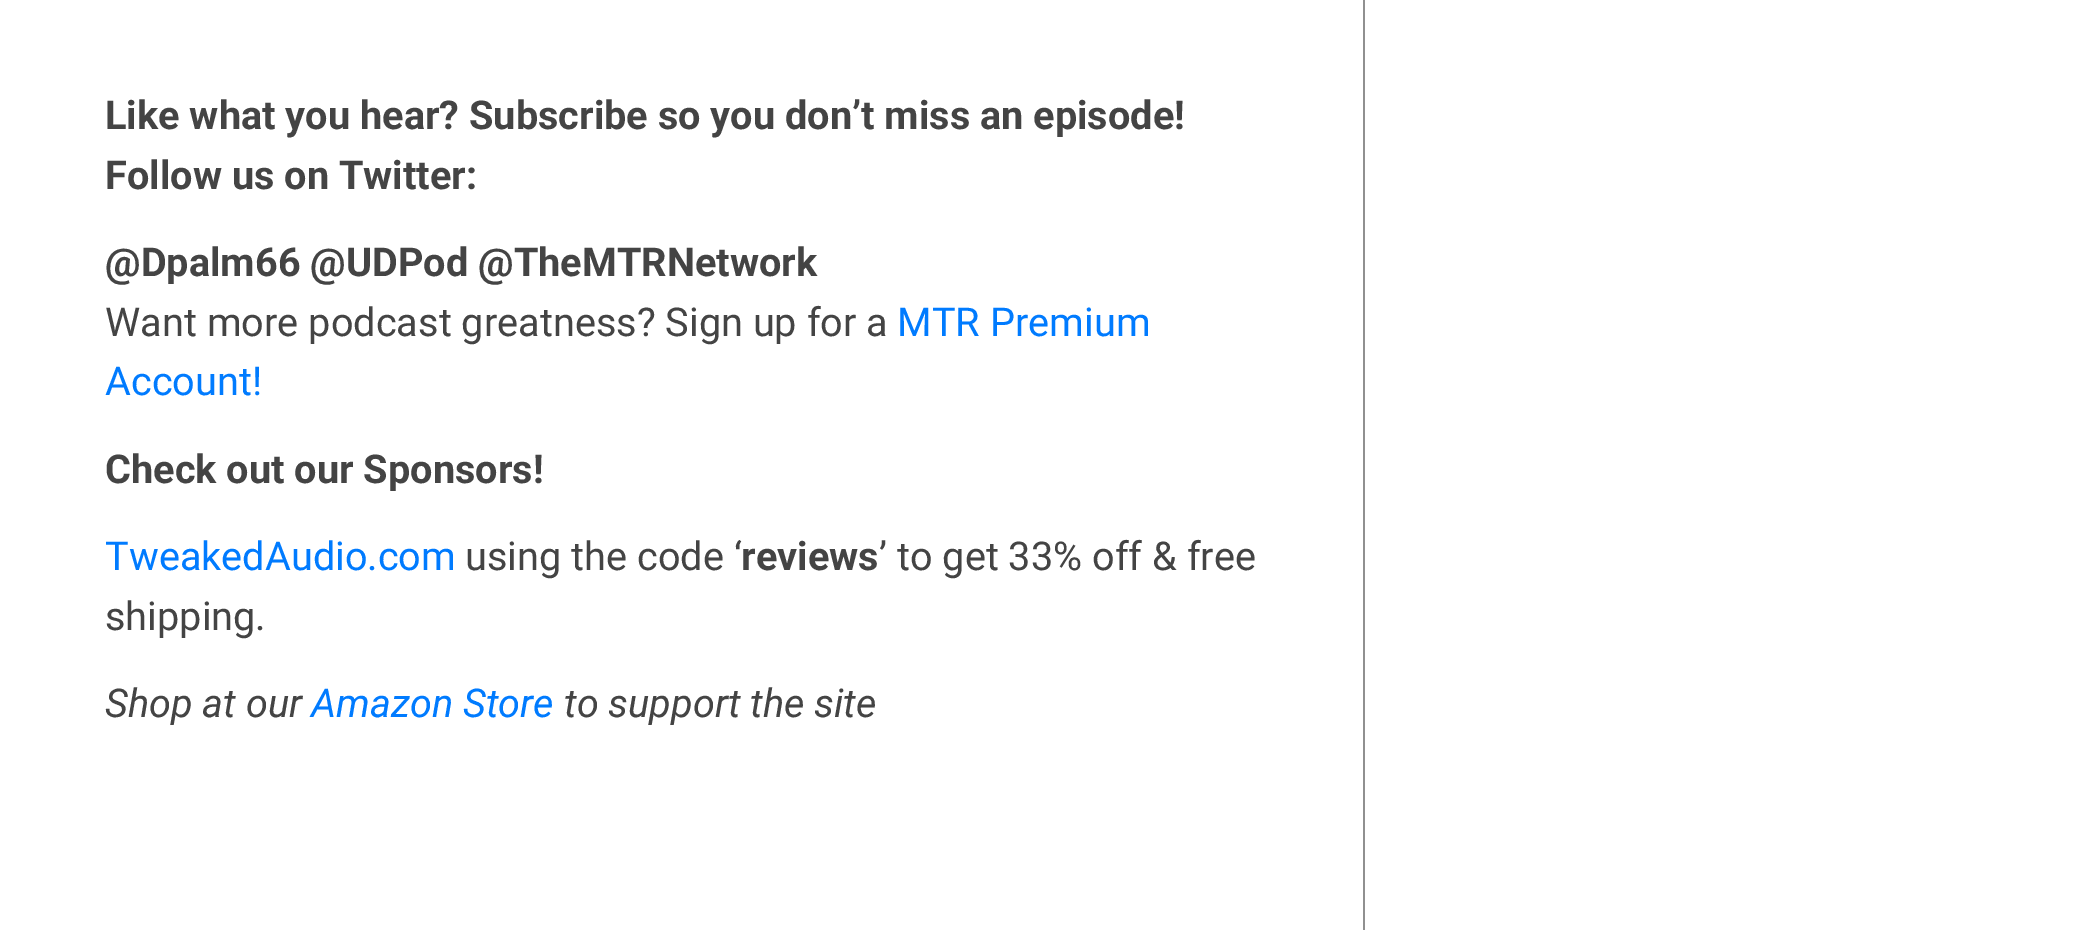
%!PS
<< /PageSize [2100 930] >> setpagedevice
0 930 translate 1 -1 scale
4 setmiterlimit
1 setgray
0 0 2100 930 rectfill
0.565 setgray
1363 0 2 930 rectfill
/Roboto-Bold [39.7 0 0 -39.7 0 0] selectfont
0.267 setgray
105 129 moveto (Like what you hear? Subscribe so you don’t miss an episode!) show
105 189 moveto (Follow us on Twitter:) show
105 276 moveto (@Dpalm66 @UDPod @TheMTRNetwork) show
/Roboto-Regular [39.7 0 0 -39.7 0 0] selectfont
105 336 moveto (Want more podcast greatness? Sign up for a) show
0 0.482 1 setrgbcolor
897 336 moveto (MTR Premium) show
105 395 moveto (Account!) show
/Roboto-Bold [39.7 0 0 -39.7 0 0] selectfont
0.267 setgray
105 483 moveto (Check out our Sponsors!) show
/Roboto-Regular [39.7 0 0 -39.7 0 0] selectfont
0 0.482 1 setrgbcolor
105 570 moveto (TweakedAudio.com) show
0.267 setgray
465 570 moveto (using the code ‘) show
/Roboto-Bold [39.7 0 0 -39.7 0 0] selectfont
741 570 moveto (reviews) show
/Roboto-Regular [39.7 0 0 -39.7 0 0] selectfont
879 570 moveto (’ to get 33% off & free) show
105 630 moveto (shipping.) show
/Roboto-Italic [39.7 0 0 -39.7 0 0] selectfont
105 717 moveto (Shop at our) show
0 0.482 1 setrgbcolor
311 717 moveto (Amazon Store) show
0.267 setgray
564 717 moveto (to support the site) show
showpage
